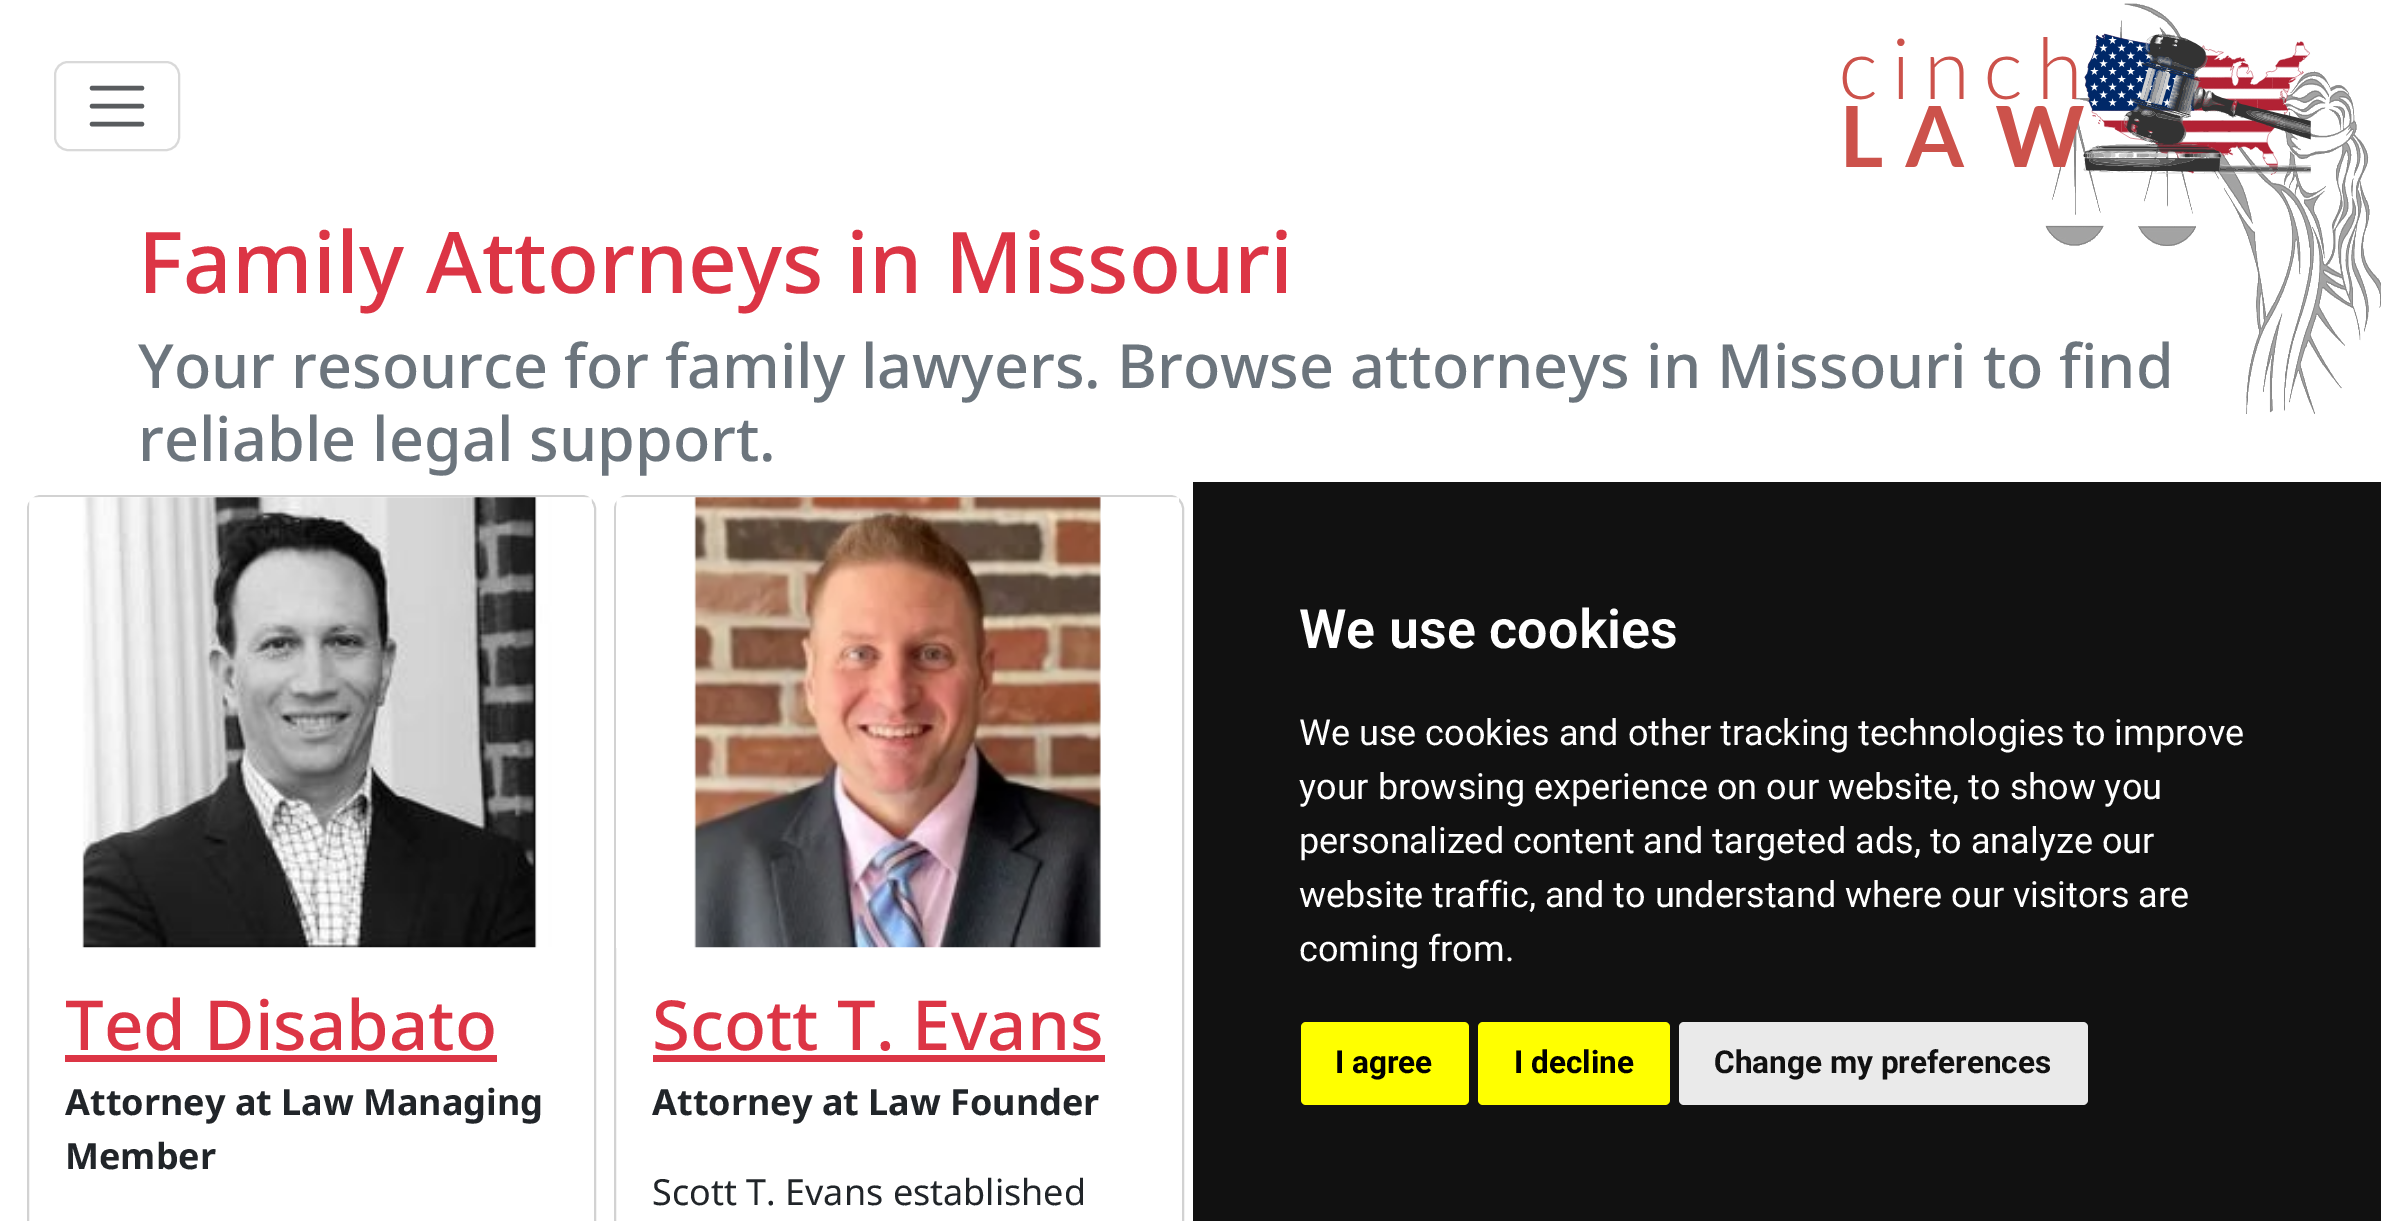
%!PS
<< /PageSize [2381 1221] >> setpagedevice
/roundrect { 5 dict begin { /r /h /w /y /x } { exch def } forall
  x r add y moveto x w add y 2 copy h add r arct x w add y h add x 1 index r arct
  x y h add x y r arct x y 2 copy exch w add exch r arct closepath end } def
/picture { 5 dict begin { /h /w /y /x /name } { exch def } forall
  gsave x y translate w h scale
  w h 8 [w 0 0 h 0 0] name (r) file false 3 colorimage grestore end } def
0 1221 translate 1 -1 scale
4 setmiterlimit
1 setgray
0 0 2381 1221 rectfill
(img1.rgb) 2045 3 336 411 picture
0.851 setgray
2 setlinewidth
55 62 124 88 13 roundrect stroke
0.349 0.361 0.373 setrgbcolor
4.5 setlinewidth
1 setlinecap
newpath 92 88 moveto 142 88 lineto 92 106 moveto 142 106 lineto 92 124 moveto 142 124 lineto stroke
(img2.rgb) 1842 33 469 142 picture
/NotoSans-Medium [85.25 0 0 -85.25 0 0] selectfont
0.863 0.208 0.271 setrgbcolor
138 293 moveto (Family Attorneys in Missouri) show
/NotoSans-Medium [61.1 0 0 -61.1 0 0] selectfont
0.424 0.459 0.49 setrgbcolor
138 388 moveto (Your resource for family lawyers. Browse attorneys in Missouri to find) show
138 461 moveto (reliable legal support.) show
0.067 setgray
1193 482 1188 739 rectfill
/Roboto-SemiBold [54 0 0 -54 0 0] selectfont
1 setgray
1299 648 moveto (We use cookies) show
/Roboto-Regular [36 0 0 -36 0 0] selectfont
1299 745 moveto (We use cookies and other tracking technologies to improve) show
1299 799 moveto (your browsing experience on our website, to show you) show
1299 853 moveto (personalized content and targeted ads, to analyze our) show
1299 907 moveto (website traffic, and to understand where our visitors are) show
1299 961 moveto (coming from.) show
1 1 0 setrgbcolor
1301 1022 168 83 5 roundrect fill
/Roboto-Bold [31.5 0 0 -31.5 0 0] selectfont
0 setgray
1335 1073 moveto (I agree) show
1 1 0 setrgbcolor
1478 1022 192 83 5 roundrect fill
0 setgray
1514 1073 moveto (I decline) show
0.918 setgray
1679 1022 409 83 5 roundrect fill
0.067 setgray
1714 1073 moveto (Change my preferences) show
0.824 setgray
2 setlinewidth
0 setlinecap
28 496 567 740 13 roundrect stroke
(img3.rgb) 29 497 563 451 picture
/NotoSans-Medium [69 0 0 -69 0 0] selectfont
0.863 0.208 0.271 setrgbcolor
65 1050 moveto (Ted Disabato) show
65 1055 432 7 rectfill
/NotoSans-Bold [36 0 0 -36 0 0] selectfont
0.129 0.145 0.161 setrgbcolor
65 1115 moveto (Attorney at Law Managing) show
65 1169 moveto (Member) show
0.824 setgray
615 496 568 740 13 roundrect stroke
(img4.rgb) 616 497 563 451 picture
/NotoSans-Medium [69 0 0 -69 0 0] selectfont
0.863 0.208 0.271 setrgbcolor
652 1050 moveto (Scott T. Evans) show
653 1055 452 7 rectfill
/NotoSans-Bold [36 0 0 -36 0 0] selectfont
0.129 0.145 0.161 setrgbcolor
652 1115 moveto (Attorney at Law Founder) show
/NotoSans-Regular [36 0 0 -36 0 0] selectfont
652 1205 moveto (Scott T. Evans established) show
showpage
